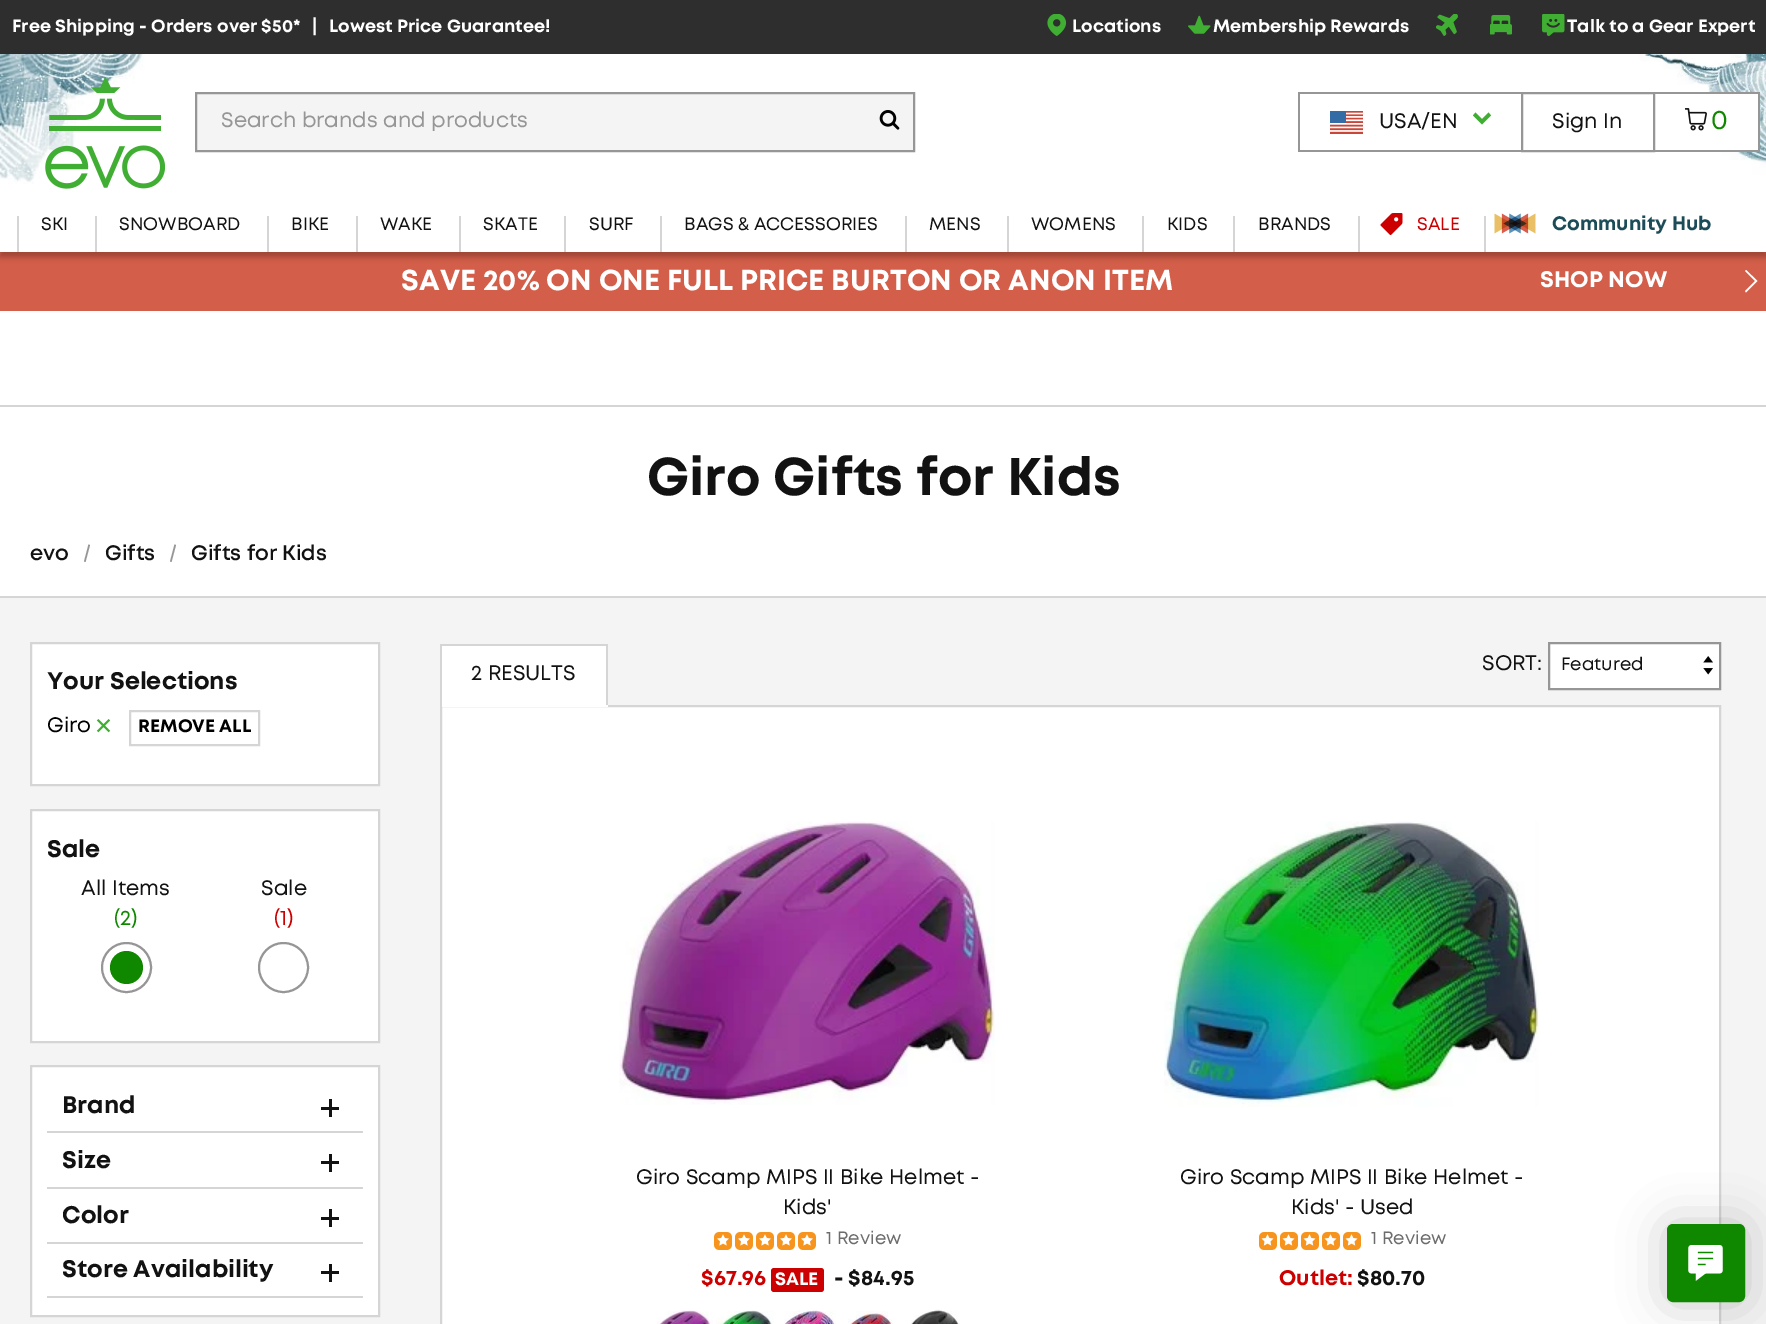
%!PS
<< /PageSize [1766 1324] /PageUsesTransparency true >> setpagedevice
/alpha { dup .setfillconstantalpha .setstrokeconstantalpha } def
/roundrect { 5 dict begin { /r /h /w /y /x } { exch def } forall
  x r add y moveto x w add y 2 copy h add r arct x w add y h add x 1 index r arct
  x y h add x y r arct x y 2 copy exch w add exch r arct closepath end } def
/shadow { 12 dict begin { /a /b /q /h /w /y /x } { exch def } forall gsave /was 0 def
  9 -2 -9 { dup b mul 4 div /e exch def 1 sub .425 mul 2.718 exch exp 1 add a .99 .min exch div /now exch def
    1 1 now sub 1 was sub div sub alpha /was now def
    w h .min e 2 mul add 0 gt { x e sub y e sub w e 2 mul add h e 2 mul add
      q e add b .6 mul add w h .min 2 div e add .min 0 .max roundrect fill } if } for grestore end } def
/picture { 5 dict begin { /h /w /y /x /name } { exch def } forall
  gsave x y translate w h scale
  w h 8 [w 0 0 h 0 0] name (r) file false 3 colorimage grestore end } def
0 .pushpdf14devicefilter
0 1324 translate 1 -1 scale
4 setmiterlimit
1 setgray
0 0 1766 1324 rectfill
0.827 0.369 0.286 setrgbcolor
0 252 1766 59 rectfill
0 setgray
0 5 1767 252 0 3 0.25 shadow
0.18 setgray
0 0 1766 54 rectfill
/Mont-ExtraBold [17.7 0 0 -17.7 0 0] selectfont
1 setgray
12 32 moveto (Free Shipping - Orders over $50*) show
312 32 moveto (|) show
329 32 moveto (Lowest Price Guarantee!) show
(img1.rgb) 1047 14 20 22 picture
1072 32 moveto (Locations) show
(img2.rgb) 1188 15 23 19 picture
1213 32 moveto (Membership Rewards) show
(img3.rgb) 1436 14 22 22 picture
(img4.rgb) 1490 15 22 20 picture
(img5.rgb) 1542 14 23 22 picture
1567 32 moveto (Talk to a Gear Expert) show
0 54 1766 198 rectfill
(img21.rgb) 0 54 1766 130 picture
(img6.rgb) 45 77 120 112 picture
0.957 setgray
newpath 196 93 moveto 914 93 lineto 914 151 lineto 196 151 lineto closepath gsave fill grestore
0.588 setgray
2 setlinewidth
stroke
/Mont-SemiBold [21 0 0 -21 0 0] selectfont
221 127 moveto (Search brands and products) show
(img7.rgb) 879 110 21 20 picture
1298 92 223 2 rectfill
1298 150 223 2 rectfill
1298 92 2 60 rectfill
(img8.rgb) 1330 111 33 23 picture
0.071 setgray
1379 128 moveto (USA/EN) show
0.251 0.682 0.196 setrgbcolor
newpath 1473 115.5 moveto 1475.5 112.5 lineto 1482 119 lineto 1488.5 112.5 lineto 1491 115.5 lineto 1482 124.5 lineto closepath fill
0.588 setgray
1522 93 132 58 rectstroke
0.071 setgray
1552 128 moveto (Sign In) show
1 setgray
1707 94 51 56 rectfill
0.588 setgray
1655 92 105 2 rectfill
1758 92 2 60 rectfill
1655 150 105 2 rectfill
(img9.rgb) 1685 108 22 23 picture
/Mont-SemiBold [27 0 0 -27 0 0] selectfont
0.059 0.533 0 setrgbcolor
1711 129 moveto (0) show
/Mont-ExtraBold [28.8 0 0 -28.8 0 0] selectfont
1 setgray
401 290 moveto (SAVE 20% ON ONE FULL PRICE BURTON OR ANON ITEM) show
/Mont-ExtraBold [22.5 0 0 -22.5 0 0] selectfont
1540 287 moveto (SHOP NOW) show
newpath 1746 292.5 moveto 1745 291 lineto 1755 281 lineto 1745 271 lineto 1746 270 lineto 1757.5 281 lineto closepath fill
0.835 setgray
0 405 1766 2 rectfill
/Mont-ExtraBold [53 0 0 -53 0 0] selectfont
0.071 setgray
647 495 moveto (Giro Gifts for Kids) show
0.835 setgray
0 596 1766 2 rectfill
/Mont-Bold [21 0 0 -21 0 0] selectfont
0.071 setgray
30 560 moveto (evo) show
0.588 setgray
newpath 88.5 544.5 moveto 90 545 lineto 85.5 562 lineto 84 561.5 lineto closepath fill
0.071 setgray
105 560 moveto (Gifts) show
0.588 setgray
newpath 174.5 544.5 moveto 176 545 lineto 171.5 562 lineto 170 561.5 lineto closepath fill
0.071 setgray
191 560 moveto (Gifts for Kids) show
0.957 setgray
0 598 1766 726 rectfill
1 setgray
newpath 31 643 moveto 379 643 lineto 379 785 lineto 31 785 lineto closepath gsave fill grestore
0.835 setgray
stroke
/Mont-ExtraBold [24 0 0 -24 0 0] selectfont
0.071 setgray
47 689 moveto (Your Selections) show
/Mont-SemiBold [21 0 0 -21 0 0] selectfont
0 setgray
47 732 moveto (Giro) show
(img10.rgb) 96 719 15 14 picture
0.835 setgray
130 711 129 34 rectstroke
/Mont-ExtraBold [18 0 0 -18 0 0] selectfont
0 setgray
138 732 moveto (REMOVE ALL) show
1 setgray
newpath 31 810 moveto 379 810 lineto 379 1042 lineto 31 1042 lineto closepath gsave fill grestore
0.835 setgray
stroke
/Mont-ExtraBold [24 0 0 -24 0 0] selectfont
0.071 setgray
47 857 moveto (Sale) show
/Mont-SemiBold [21 0 0 -21 0 0] selectfont
81 895 moveto (All Items) show
0.059 0.533 0 setrgbcolor
114 925 moveto (\(2\)) show
0.588 setgray
newpath 126.5 967.5 24.5 0 360 arc closepath stroke
0.059 0.533 0 setrgbcolor
newpath 126.5 967.5 16.5 0 360 arc closepath fill
0.071 setgray
261 895 moveto (Sale) show
0.8 0 0 setrgbcolor
274 925 moveto (\(1\)) show
0.588 setgray
newpath 283.5 967.5 24.5 0 360 arc closepath stroke
1 setgray
newpath 31 1066 moveto 379 1066 lineto 379 1316 lineto 31 1316 lineto closepath gsave fill grestore
0.835 setgray
stroke
47 1131 316 2 rectfill
/Mont-ExtraBold [24 0 0 -24 0 0] selectfont
0.071 setgray
62 1113 moveto (Brand) show
321 1107 18 3 rectfill
329 1099 3 18 rectfill
0.835 setgray
47 1187 316 2 rectfill
0.071 setgray
62 1168 moveto (Size) show
321 1161 18 3 rectfill
329 1154 3 18 rectfill
0.835 setgray
47 1242 316 2 rectfill
0.071 setgray
62 1223 moveto (Color) show
321 1217 18 3 rectfill
329 1209 3 18 rectfill
0.835 setgray
47 1296 316 2 rectfill
0.071 setgray
62 1277 moveto (Store Availability) show
321 1271 18 3 rectfill
329 1264 3 18 rectfill
/Mont-SemiBold [21 0 0 -21 0 0] selectfont
1482 670 moveto (SORT:) show
1 setgray
1550 644 169 44 rectfill
(img11.rgb) 1703 656 10 19 picture
0.588 setgray
1549 643 171 46 rectstroke
/Mont-SemiBold [18 0 0 -18 0 0] selectfont
0.071 setgray
1561 670 moveto (Featured) show
1 setgray
442 646 164 59 rectfill
0.835 setgray
440 644 168 2 rectfill
1 setgray
newpath 441 706 moveto 1720 706 lineto 1720 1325 lineto 441 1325 lineto closepath gsave fill grestore
0.835 setgray
stroke
606 644 2 63 rectfill
1 setgray
440 705 168 2 rectfill
0.835 setgray
440 644 2 63 rectfill
/Mont-SemiBold [21 0 0 -21 0 0] selectfont
0.071 setgray
471 680 moveto (2 RESULTS) show
(img12.rgb) 619 821 376 284 picture
636 1184 moveto (Giro Scamp MIPS II Bike Helmet -) show
783 1214 moveto (Kids') show
(img13.rgb) 714 1232 18 18 picture
(img13.rgb) 735 1232 18 18 picture
(img13.rgb) 756 1232 18 18 picture
(img13.rgb) 777 1232 18 18 picture
(img13.rgb) 798 1232 18 18 picture
/Mont-SemiBold [18 0 0 -18 0 0] selectfont
0.424 setgray
826 1244 moveto (1 Review) show
/Mont-ExtraBold [21 0 0 -21 0 0] selectfont
0.8 0 0 setrgbcolor
701 1285 moveto ($67.96) show
771 1268 53 24 3 roundrect fill
/Mont-ExtraBold [18 0 0 -18 0 0] selectfont
1 setgray
775 1285 moveto (SALE) show
/Mont-ExtraBold [21 0 0 -21 0 0] selectfont
0.071 setgray
834 1285 moveto (- $84.95) show
(img14.rgb) 657 1310 56 14 picture
(img15.rgb) 716 1310 58 14 picture
(img16.rgb) 784 1310 52 14 picture
(img17.rgb) 848 1311 45 13 picture
(img18.rgb) 911 1309 49 15 picture
(img19.rgb) 1164 821 375 286 picture
/Mont-SemiBold [21 0 0 -21 0 0] selectfont
1180 1184 moveto (Giro Scamp MIPS II Bike Helmet -) show
1291 1214 moveto (Kids' - Used) show
(img20.rgb) 1259 1232 18 18 picture
(img20.rgb) 1280 1232 18 18 picture
(img20.rgb) 1301 1232 18 18 picture
(img20.rgb) 1322 1232 18 18 picture
(img20.rgb) 1343 1232 18 18 picture
/Mont-SemiBold [18 0 0 -18 0 0] selectfont
0.424 setgray
1371 1244 moveto (1 Review) show
/Mont-ExtraBold [21 0 0 -21 0 0] selectfont
0.8 0 0 setrgbcolor
1279 1285 moveto (Outlet:) show
0.071 setgray
1357 1285 moveto ($80.70) show
0.835 setgray
17 216 2 36 rectfill
/Mont-SemiBold [18 0 0 -18 0 0] selectfont
0.071 setgray
41 230 moveto (SKI) show
0.835 setgray
95 216 2 36 rectfill
0.071 setgray
119 230 moveto (SNOWBOARD) show
0.835 setgray
267 216 2 36 rectfill
0.071 setgray
291 230 moveto (BIKE) show
0.835 setgray
356 216 2 36 rectfill
0.071 setgray
380 230 moveto (WAKE) show
0.835 setgray
459 216 2 36 rectfill
0.071 setgray
483 230 moveto (SKATE) show
0.835 setgray
564 216 2 36 rectfill
0.071 setgray
589 230 moveto (SURF) show
0.835 setgray
660 216 2 36 rectfill
0.071 setgray
684 230 moveto (BAGS & ACCESSORIES) show
0.835 setgray
905 216 2 36 rectfill
0.071 setgray
929 230 moveto (MENS) show
0.835 setgray
1007 216 2 36 rectfill
0.071 setgray
1031 230 moveto (WOMENS) show
0.835 setgray
1142 216 2 36 rectfill
0.071 setgray
1167 230 moveto (KIDS) show
0.835 setgray
1233 216 2 36 rectfill
0.071 setgray
1258 230 moveto (BRANDS) show
0.835 setgray
1358 216 2 36 rectfill
(img22.rgb) 1380 213 23 22 picture
0.8 0 0 setrgbcolor
1417 230 moveto (SALE) show
0.835 setgray
1484 216 2 36 rectfill
(img23.rgb) 1494 213 42 21 picture
/Mont-ExtraBold [19.5 0 0 -19.5 0 0] selectfont
0.106 0.298 0.345 setrgbcolor
1552 230 moveto (Community Hub) show
0 setgray
1665 1223 81 81 8 22.5 0.2 shadow
0.059 0.533 0 setrgbcolor
1668 1225 76 76 5 roundrect gsave fill grestore
stroke
(img24.rgb) 1688 1245 35 36 picture
.poppdf14devicefilter showpage
